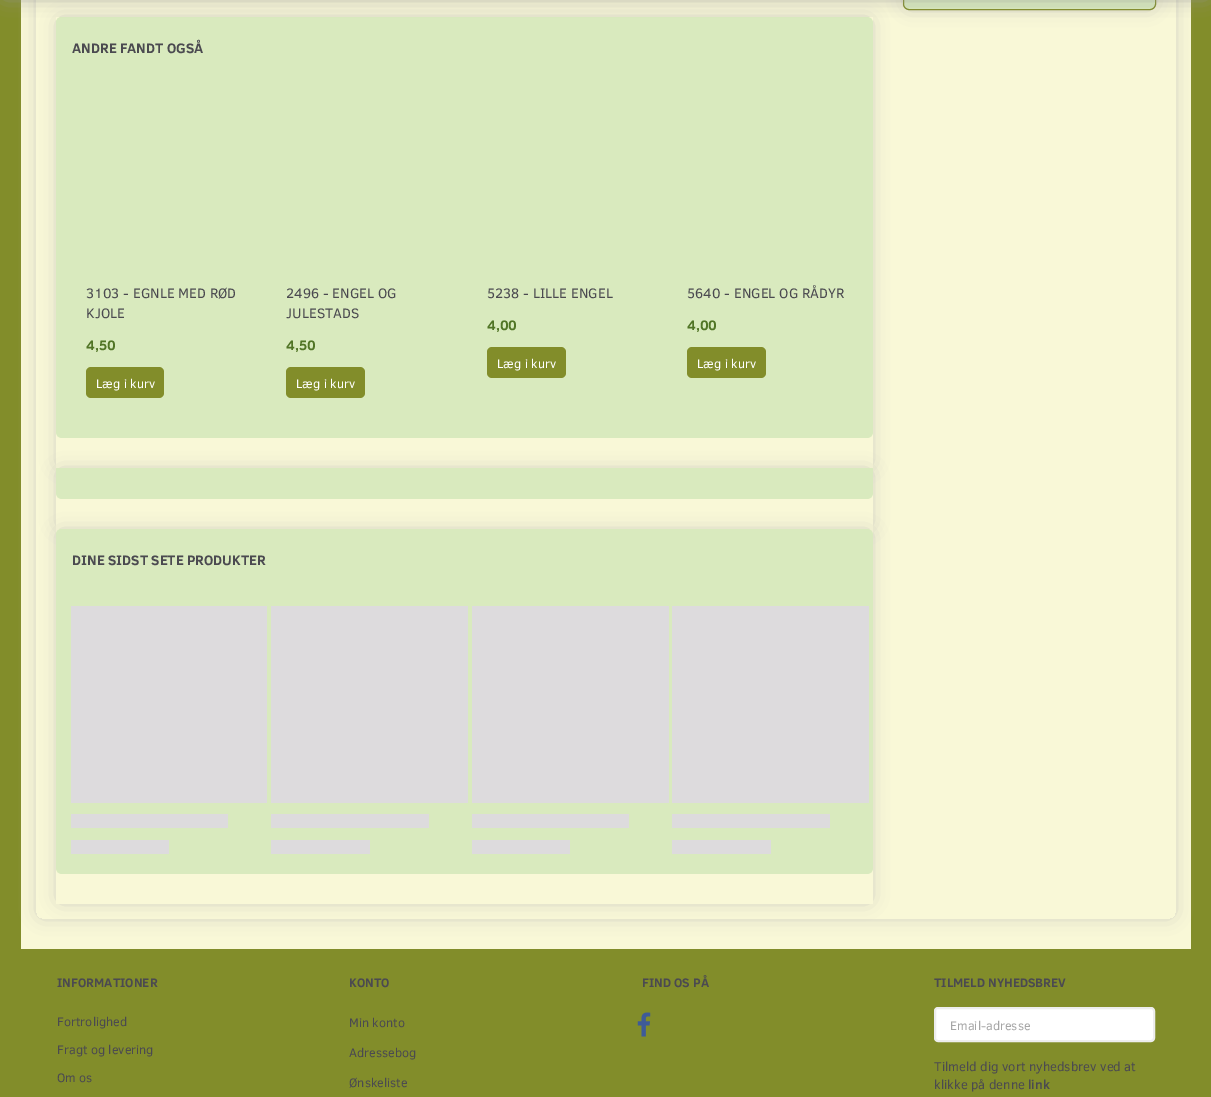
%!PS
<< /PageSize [1211 1097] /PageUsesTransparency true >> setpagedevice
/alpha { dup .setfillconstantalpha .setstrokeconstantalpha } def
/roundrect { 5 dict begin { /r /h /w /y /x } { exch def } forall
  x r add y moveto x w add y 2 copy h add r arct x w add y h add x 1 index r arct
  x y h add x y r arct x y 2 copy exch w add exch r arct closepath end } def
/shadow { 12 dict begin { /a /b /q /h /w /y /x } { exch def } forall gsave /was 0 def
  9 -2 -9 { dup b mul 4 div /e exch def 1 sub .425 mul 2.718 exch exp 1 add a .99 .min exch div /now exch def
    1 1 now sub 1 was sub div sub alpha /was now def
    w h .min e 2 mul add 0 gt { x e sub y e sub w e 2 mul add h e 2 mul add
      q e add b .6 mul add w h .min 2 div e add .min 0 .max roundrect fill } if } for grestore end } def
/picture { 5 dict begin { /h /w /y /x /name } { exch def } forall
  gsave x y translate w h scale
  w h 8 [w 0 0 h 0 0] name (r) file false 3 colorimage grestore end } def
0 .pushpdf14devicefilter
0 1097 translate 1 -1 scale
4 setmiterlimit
0.51 0.553 0.165 setrgbcolor
0 0 1211 1097 rectfill
0.976 0.973 0.843 setrgbcolor
21 0 1170 949 rectfill
gsave
newpath 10 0 moveto 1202 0 lineto 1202 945 lineto 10 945 lineto closepath 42 -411 moveto 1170 -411 lineto 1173.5 -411 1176 -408.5 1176 -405 curveto 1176 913 lineto 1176 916.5 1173.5 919 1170 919 curveto 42 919 lineto 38.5 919 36 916.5 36 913 curveto 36 -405 lineto 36 -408.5 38.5 -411 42 -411 curveto closepath eoclip newpath
0.722 setgray
41 -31 1130 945 1 10 1 shadow
grestore
0.722 setgray
908 -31 243 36 1 10 1 shadow
0.851 0.918 0.745 setrgbcolor
903.5 -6.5 252 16 5.5 roundrect gsave fill grestore
0.51 0.553 0.165 setrgbcolor
stroke
gsave
newpath 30 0 moveto 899 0 lineto 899 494 lineto 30 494 lineto closepath 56 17 moveto 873 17 lineto 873 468 lineto 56 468 lineto closepath eoclip newpath
0.722 setgray
61 22 807 441 0 10 1 shadow
grestore
0.851 0.918 0.745 setrgbcolor
newpath 62 17 moveto 867 17 lineto 870.5 17 873 19.5 873 23 curveto 873 79 lineto 56 79 lineto 56 23 lineto 56 19.5 58.5 17 62 17 curveto closepath fill
newpath 62 17 moveto 219 17 lineto 219 79 lineto 56 79 lineto 56 23 lineto 56 19.5 58.5 17 62 17 curveto closepath fill
0.58 setgray
5 -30 1201 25 0 10 1 shadow
/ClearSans-Bold [14 0 0 -14 0 0] selectfont
0.294 0.29 0.314 setrgbcolor
72 53 moveto (ANDRE FANDT OGSÅ) show
0.851 0.918 0.745 setrgbcolor
newpath 56 79 moveto 873 79 lineto 873 432 lineto 873 435.5 870.5 438 867 438 curveto 62 438 lineto 58.5 438 56 435.5 56 432 curveto closepath fill
/ClearSans-Regular [14 0 0 -14 0 0] selectfont
0.294 0.29 0.314 setrgbcolor
86 298 moveto (3103 - EGNLE MED RØD) show
86 318 moveto (KJOLE) show
/ClearSans-Bold [14 0 0 -14 0 0] selectfont
0.318 0.459 0.149 setrgbcolor
86 350 moveto (4,50) show
0.51 0.553 0.165 setrgbcolor
86 367 78 31 5 roundrect fill
/ClearSans-Regular [12.6 0 0 -12.6 0 0] selectfont
1 setgray
96 388 moveto (Læg i kurv) show
/ClearSans-Regular [14 0 0 -14 0 0] selectfont
0.294 0.29 0.314 setrgbcolor
286 298 moveto (2496 - ENGEL OG) show
286 318 moveto (JULESTADS) show
/ClearSans-Bold [14 0 0 -14 0 0] selectfont
0.318 0.459 0.149 setrgbcolor
286 350 moveto (4,50) show
0.51 0.553 0.165 setrgbcolor
286 367 79 31 5 roundrect fill
/ClearSans-Regular [12.6 0 0 -12.6 0 0] selectfont
1 setgray
296 388 moveto (Læg i kurv) show
/ClearSans-Regular [14 0 0 -14 0 0] selectfont
0.294 0.29 0.314 setrgbcolor
487 298 moveto (5238 - LILLE ENGEL) show
/ClearSans-Bold [14 0 0 -14 0 0] selectfont
0.318 0.459 0.149 setrgbcolor
487 330 moveto (4,00) show
0.51 0.553 0.165 setrgbcolor
487 347 79 31 5 roundrect fill
/ClearSans-Regular [12.6 0 0 -12.6 0 0] selectfont
1 setgray
497 368 moveto (Læg i kurv) show
/ClearSans-Regular [14 0 0 -14 0 0] selectfont
0.294 0.29 0.314 setrgbcolor
687 298 moveto (5640 - ENGEL OG RÅDYR) show
/ClearSans-Bold [14 0 0 -14 0 0] selectfont
0.318 0.459 0.149 setrgbcolor
687 330 moveto (4,00) show
0.51 0.553 0.165 setrgbcolor
687 347 79 31 5 roundrect fill
/ClearSans-Regular [12.6 0 0 -12.6 0 0] selectfont
1 setgray
697 368 moveto (Læg i kurv) show
gsave
newpath 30 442 moveto 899 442 lineto 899 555 lineto 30 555 lineto closepath 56 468 moveto 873 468 lineto 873 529 lineto 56 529 lineto closepath eoclip newpath
0.722 setgray
61 473 807 51 0 10 1 shadow
grestore
0.851 0.918 0.745 setrgbcolor
newpath 57 468 moveto 872 468 lineto 872.5 468 873 468.5 873 469 curveto 56 469 lineto 56 468.5 56.5 468 57 468 curveto closepath fill
newpath 56 469 moveto 873 469 lineto 873 493 lineto 873 496.5 870.5 499 867 499 curveto 62 499 lineto 58.5 499 56 496.5 56 493 curveto closepath fill
gsave
newpath 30 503 moveto 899 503 lineto 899 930 lineto 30 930 lineto closepath 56 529 moveto 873 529 lineto 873 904 lineto 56 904 lineto closepath eoclip newpath
0.722 setgray
61 534 807 365 0 10 1 shadow
grestore
newpath 62 529 moveto 867 529 lineto 870.5 529 873 531.5 873 535 curveto 873 591 lineto 56 591 lineto 56 535 lineto 56 531.5 58.5 529 62 529 curveto closepath fill
newpath 62 529 moveto 281 529 lineto 281 591 lineto 56 591 lineto 56 535 lineto 56 531.5 58.5 529 62 529 curveto closepath fill
/ClearSans-Bold [14 0 0 -14 0 0] selectfont
0.294 0.29 0.314 setrgbcolor
72 565 moveto (DINE SIDST SETE PRODUKTER) show
0.851 0.918 0.745 setrgbcolor
newpath 56 591 moveto 873 591 lineto 873 868 lineto 873 871.5 870.5 874 867 874 curveto 62 874 lineto 58.5 874 56 871.5 56 868 curveto closepath fill
0.867 0.859 0.867 setrgbcolor
71 606 196 197 rectfill
71 814 157 14 rectfill
71 840 98 14 rectfill
271 606 197 197 rectfill
271 814 158 14 rectfill
271 840 99 14 rectfill
472 606 197 197 rectfill
472 814 157 14 rectfill
472 840 98 14 rectfill
672 606 197 197 rectfill
672 814 158 14 rectfill
672 840 99 14 rectfill
/ClearSans-Bold [12.6 0 0 -12.6 0 0] selectfont
0.294 0.29 0.314 setrgbcolor
57 987 moveto (INFORMATIONER) show
/ClearSans-Regular [12.6 0 0 -12.6 0 0] selectfont
57 1026 moveto (Fortrolighed) show
57 1054 moveto (Fragt og levering) show
57 1082 moveto (Om os) show
/ClearSans-Bold [12.6 0 0 -12.6 0 0] selectfont
349 987 moveto (KONTO) show
/ClearSans-Regular [12.6 0 0 -12.6 0 0] selectfont
349 1027 moveto (Min konto) show
349 1057 moveto (Adressebog) show
349 1087 moveto (Ønskeliste) show
/ClearSans-Bold [12.6 0 0 -12.6 0 0] selectfont
642 987 moveto (FIND OS PÅ) show
(img1.rgb) 637 1012 14 25 picture
934 987 moveto (TILMELD NYHEDSBREV) show
1 setgray
935 1008 219 33 3 roundrect gsave fill grestore
0.929 setgray
2 setlinewidth
stroke
/ClearSans-Regular [12.6 0 0 -12.6 0 0] selectfont
0.651 setgray
950 1030 moveto (Email-adresse) show
/ClearSans-Regular [13 0 0 -13 0 0] selectfont
0.294 0.29 0.314 setrgbcolor
934 1071 moveto (Tilmeld dig vort nyhedsbrev ved at) show
934 1089 moveto (klikke på denne) show
/ClearSans-Bold [13 0 0 -13 0 0] selectfont
1028 1089 moveto (link) show
.poppdf14devicefilter showpage
